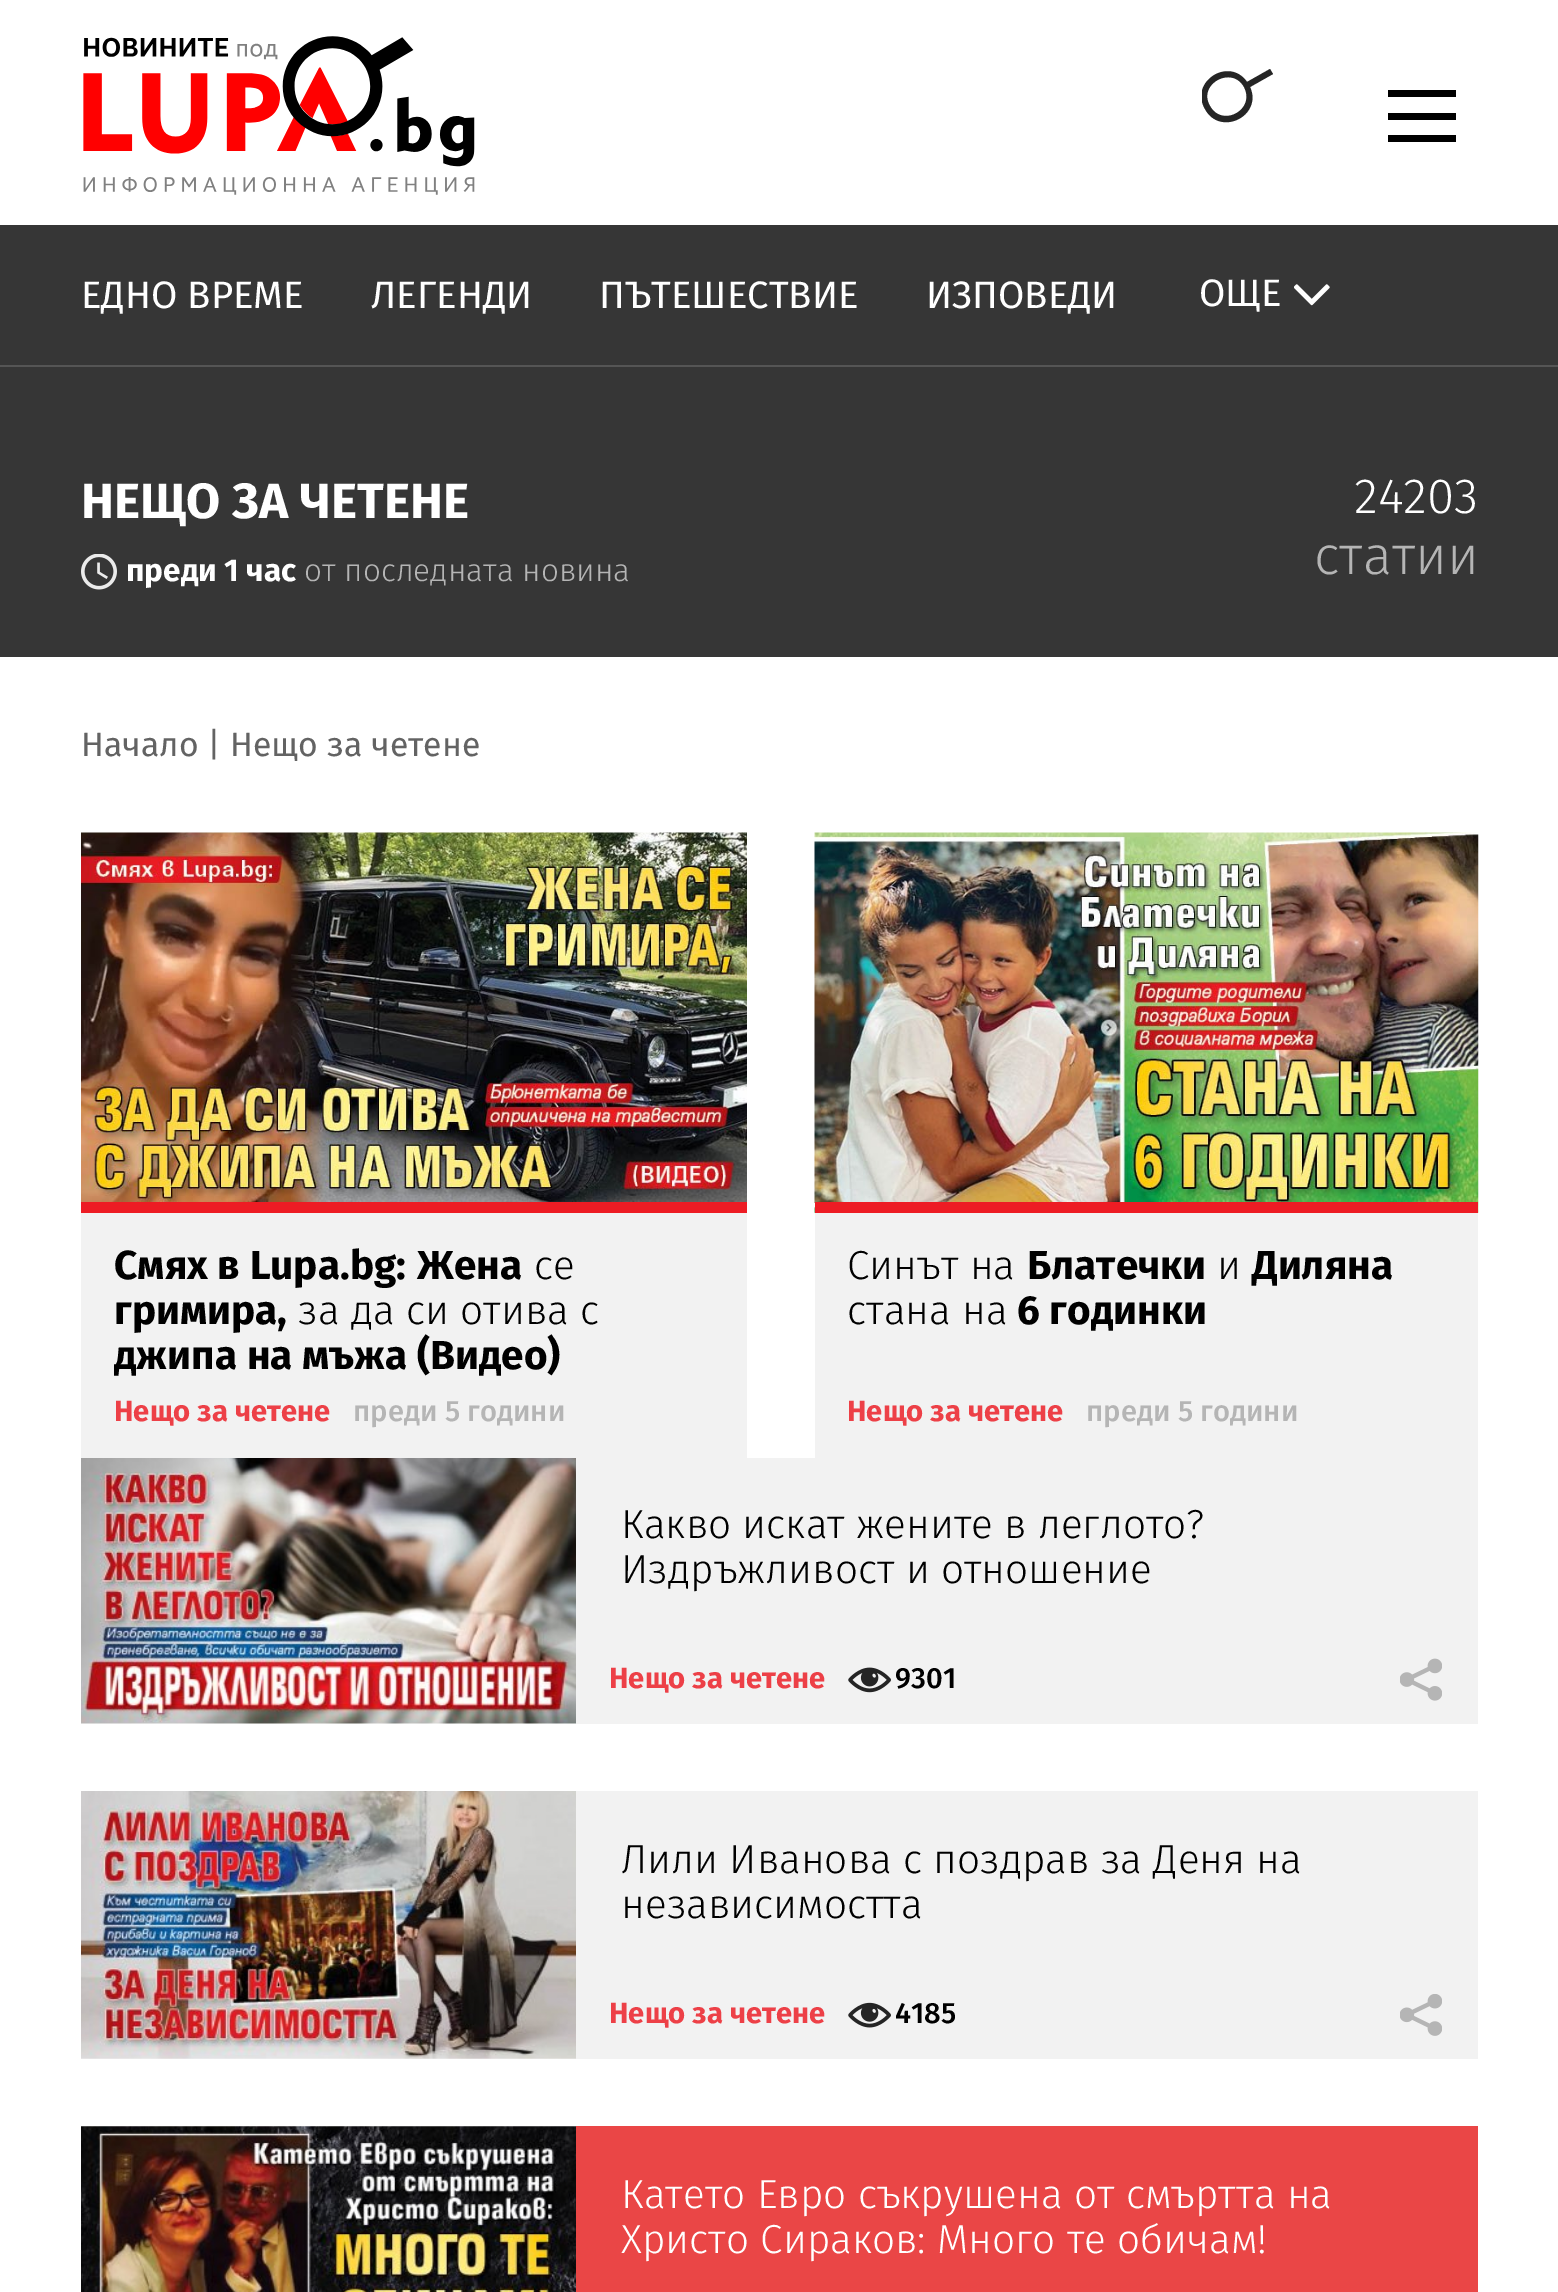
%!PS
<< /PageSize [1558 2292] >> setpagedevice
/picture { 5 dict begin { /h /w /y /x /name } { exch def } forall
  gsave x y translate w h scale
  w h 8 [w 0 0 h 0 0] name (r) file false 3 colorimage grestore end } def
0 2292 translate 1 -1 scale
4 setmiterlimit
1 setgray
0 0 1558 2292 rectfill
(img1.rgb) 83 36 392 159 picture
gsave
1202 65 72 59 rectclip
0.145 setgray
newpath 1205 109 moveto 1220 137 1263 116 1250 87 curveto 1273 74 lineto 1270 69 lineto 1247 82 lineto 1229 56 1189 82 1205 109 curveto closepath 1210 106 moveto 1197 84 1232 65 1244 87 curveto 1256 110 1222 128 1210 106 curveto closepath fill
grestore
0 setgray
1388 90 68 7 rectfill
1388 113 68 7 rectfill
1388 135 68 7 rectfill
0.212 setgray
0 225 1558 432 rectfill
/FiraSans-Regular [38.25 0 0 -38.25 0 0] selectfont
1 setgray
81 308 moveto (ЕДНО ВРЕМЕ) show
371 308 moveto (ЛЕГЕНДИ) show
599 308 moveto (ПЪТЕШЕСТВИЕ) show
926 308 moveto (ИЗПОВЕДИ) show
(img2.rgb) 1294 284 36 22 picture
1199 306 moveto (ОЩЕ) show
0.333 setgray
0 365 1558 2 rectfill
/FiraSans-Bold [49.5 0 0 -49.5 0 0] selectfont
1 setgray
81 518 moveto (НЕЩО ЗА ЧЕТЕНЕ) show
(img3.rgb) 81 554 36 36 picture
/FiraSans-Bold [31.5 0 0 -31.5 0 0] selectfont
126 581 moveto (преди 1 час) show
/FiraSans-Light [31.5 0 0 -31.5 0 0] selectfont
0.71 setgray
304 581 moveto (от последната новина) show
/FiraSans-Light [49.5 0 0 -49.5 0 0] selectfont
1 setgray
1354 513 moveto (24203) show
/FiraSans-Light [54 0 0 -54 0 0] selectfont
0.71 setgray
1314 574 moveto (статии) show
/FiraSans-Regular [33.75 0 0 -33.75 0 0] selectfont
0.388 setgray
81 756 moveto (Начало | Нещо за четене) show
0.949 setgray
81 1213 666 245 rectfill
(img4.rgb) 81 832 666 370 picture
0.929 0.11 0.141 setrgbcolor
81 1202 666 11 rectfill
/FiraSans-Bold [40.5 0 0 -40.5 0 0] selectfont
0 setgray
114 1279 moveto (Смях в Lupa.bg:) show
417 1279 moveto (Жена) show
/FiraSans-Light [40.5 0 0 -40.5 0 0] selectfont
534 1279 moveto (се) show
/FiraSans-Bold [40.5 0 0 -40.5 0 0] selectfont
114 1324 moveto (гримира,) show
/FiraSans-Light [40.5 0 0 -40.5 0 0] selectfont
298 1324 moveto (за да си отива с) show
/FiraSans-Bold [40.5 0 0 -40.5 0 0] selectfont
114 1369 moveto (джипа на мъжа \(Видео\)) show
/FiraSans-Bold [29.25 0 0 -29.25 0 0] selectfont
0.929 0.251 0.278 setrgbcolor
114 1421 moveto (Нещо за четене) show
/FiraSans-Medium [29.25 0 0 -29.25 0 0] selectfont
0.71 setgray
353 1421 moveto (преди 5 години) show
0.949 setgray
815 1213 663 245 rectfill
(img5.rgb) 814 832 665 381 picture
0.929 0.11 0.141 setrgbcolor
815 1202 663 11 rectfill
/FiraSans-Light [40.5 0 0 -40.5 0 0] selectfont
0 setgray
847 1279 moveto (Синът на) show
/FiraSans-Bold [40.5 0 0 -40.5 0 0] selectfont
1027 1279 moveto (Блатечки) show
/FiraSans-Light [40.5 0 0 -40.5 0 0] selectfont
1217 1279 moveto (и) show
/FiraSans-Bold [40.5 0 0 -40.5 0 0] selectfont
1252 1279 moveto (Диляна) show
/FiraSans-Light [40.5 0 0 -40.5 0 0] selectfont
847 1324 moveto (стана на) show
/FiraSans-Bold [40.5 0 0 -40.5 0 0] selectfont
1017 1324 moveto (6 годинки) show
/FiraSans-Bold [29.25 0 0 -29.25 0 0] selectfont
0.929 0.251 0.278 setrgbcolor
847 1421 moveto (Нещо за четене) show
/FiraSans-Medium [29.25 0 0 -29.25 0 0] selectfont
0.71 setgray
1086 1421 moveto (преди 5 години) show
(img6.rgb) 81 1458 495 266 picture
0.949 setgray
576 1458 902 266 rectfill
/FiraSans-Light [40.5 0 0 -40.5 0 0] selectfont
0 setgray
621 1538 moveto (Какво искат жените в леглото?) show
621 1583 moveto (Издръжливост и отношение) show
/FiraSans-Bold [29.25 0 0 -29.25 0 0] selectfont
0.929 0.251 0.278 setrgbcolor
609 1688 moveto (Нещо за четене) show
(img7.rgb) 848 1667 43 26 picture
/FiraSans-Medium [29.25 0 0 -29.25 0 0] selectfont
0 setgray
895 1688 moveto (9301) show
(img8.rgb) 1400 1658 42 43 picture
(img9.rgb) 81 1791 495 268 picture
0.949 setgray
576 1791 902 268 rectfill
/FiraSans-Light [40.5 0 0 -40.5 0 0] selectfont
0 setgray
621 1873 moveto (Лили Иванова с поздрав за Деня на) show
621 1918 moveto (независимостта) show
/FiraSans-Bold [29.25 0 0 -29.25 0 0] selectfont
0.929 0.251 0.278 setrgbcolor
609 2023 moveto (Нещо за четене) show
(img10.rgb) 848 2002 43 26 picture
/FiraSans-Medium [29.25 0 0 -29.25 0 0] selectfont
0 setgray
895 2023 moveto (4185) show
(img11.rgb) 1400 1994 42 42 picture
(img12.rgb) 81 2126 495 166 picture
0.918 0.275 0.275 setrgbcolor
576 2126 902 166 rectfill
/FiraSans-Light [40.5 0 0 -40.5 0 0] selectfont
1 setgray
621 2208 moveto (Катето Евро съкрушена от смъртта на) show
621 2253 moveto (Христо Сираков: Много те обичам!) show
showpage
